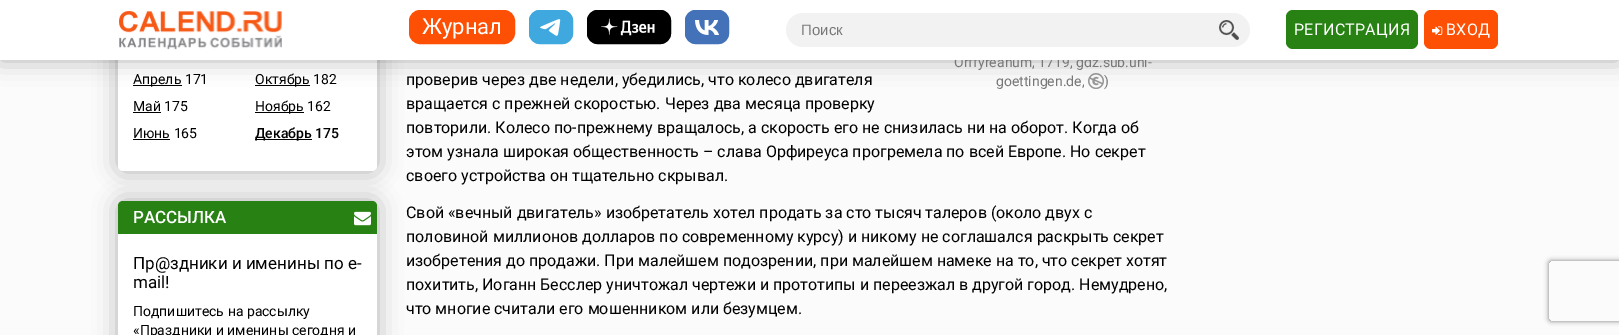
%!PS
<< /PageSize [1619 335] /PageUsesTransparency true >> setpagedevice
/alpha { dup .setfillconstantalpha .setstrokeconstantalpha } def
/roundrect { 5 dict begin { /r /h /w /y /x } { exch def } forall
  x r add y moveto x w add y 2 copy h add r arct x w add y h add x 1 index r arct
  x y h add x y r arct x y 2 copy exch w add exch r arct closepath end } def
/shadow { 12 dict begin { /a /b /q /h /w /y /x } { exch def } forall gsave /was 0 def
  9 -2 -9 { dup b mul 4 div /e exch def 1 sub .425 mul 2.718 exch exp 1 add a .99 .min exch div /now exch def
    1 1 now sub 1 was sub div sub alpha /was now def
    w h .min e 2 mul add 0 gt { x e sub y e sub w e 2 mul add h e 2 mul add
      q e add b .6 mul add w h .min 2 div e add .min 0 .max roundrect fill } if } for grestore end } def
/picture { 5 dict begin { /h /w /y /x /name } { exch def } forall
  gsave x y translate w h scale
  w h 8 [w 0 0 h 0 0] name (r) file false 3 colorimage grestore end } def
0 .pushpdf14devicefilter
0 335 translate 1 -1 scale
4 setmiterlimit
0.984 setgray
0 0 1619 335 rectfill
0 setgray
118 -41 259 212 5 12 0.3 shadow
1 setgray
118 -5 259 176 5 roundrect fill
0 setgray
133 85 49 1 rectfill
255 85 55 1 rectfill
(img8.rgb) 1088 73 16 16 picture
0 0 1619 60 0 12 0.3 shadow
/Roboto-Regular [14 0 0 -14 0 0] selectfont
0.467 setgray
954 67 moveto (Orffyreanum, 1719, gdz.sub.uni-) show
1 setgray
0 0 1619 60 rectfill
(img1.rgb) 119 11 163 39 picture
0.996 0.314 0.016 setrgbcolor
410 11 104 32 10 roundrect gsave fill grestore
2 setlinewidth
stroke
/Roboto-Regular [22 0 0 -22 0 0] selectfont
1 setgray
422 34 moveto (Журнал) show
0.247 0.663 0.875 setrgbcolor
529 10 44 34 11 roundrect fill
(img2.rgb) 540 19 21 17 picture
530 11 42 32 10 roundrect stroke
0 setgray
587 10 84 34 11 roundrect fill
(img3.rgb) 601 18 54 18 picture
588 11 82 32 10 roundrect stroke
0.263 0.447 0.722 setrgbcolor
685 10 44 34 11 roundrect fill
(img4.rgb) 695 20 24 15 picture
686 11 42 32 10 roundrect stroke
0.949 setgray
786 13 464 34 17 roundrect fill
/LiberationSans-Regular [15 0 0 -15 0 0] selectfont
0.467 setgray
801 35 moveto (Поиск) show
(img5.rgb) 1219 20 20 20 picture
0.157 0.51 0.075 setrgbcolor
1286 10 132 39 7 roundrect fill
/Roboto-Regular [16 0 0 -16 0 0] selectfont
1 setgray
1294 35 moveto 0.25 0 (РЕГИСТРАЦИЯ) ashow
0.996 0.314 0.016 setrgbcolor
1424 10 74 39 7 roundrect fill
(img6.rgb) 1432 26 11 9 picture
1 setgray
1446 35 moveto 0.25 0 (ВХОД) ashow
/Roboto-Regular [14 0 0 -14 0 0] selectfont
0 setgray
133 84 moveto (Апрель 171) show
255 84 moveto (Октябрь 182) show
133 111 moveto (Май 175) show
133 112 28 1 rectfill
255 112 49 1 rectfill
255 111 moveto (Ноябрь 162) show
133 138 moveto (Июнь 165) show
133 139 37 1 rectfill
255 139 57 1 rectfill
/Roboto-Medium [14 0 0 -14 0 0] selectfont
255 138 moveto (Декабрь 175) show
118 201 259 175 5 12 0.3 shadow
1 setgray
118 201 259 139 5 roundrect fill
0.157 0.51 0.075 setrgbcolor
newpath 123 201 moveto 372 201 lineto 375 201 377 203 377 206 curveto 377 234 lineto 118 234 lineto 118 206 lineto 118 203 120 201 123 201 curveto closepath fill
/Roboto-Medium [17 0 0 -17 0 0] selectfont
1 setgray
133 223 moveto (РАССЫЛКА) show
(img7.rgb) 354 211 17 15 picture
/Roboto-Regular [17 0 0 -17 0 0] selectfont
0 setgray
133 269 moveto (Пр@здники и именины по e-) show
133 288 moveto (mail!) show
gsave
newpath 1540 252 moveto 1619 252 lineto 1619 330 lineto 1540 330 lineto closepath 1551 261 moveto 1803 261 lineto 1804 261 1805 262 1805 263 curveto 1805 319 lineto 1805 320 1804 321 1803 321 curveto 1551 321 lineto 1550 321 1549 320 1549 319 curveto 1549 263 lineto 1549 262 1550 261 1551 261 curveto closepath eoclip newpath
0.502 setgray
1549 261 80 60 2 2.5 1 shadow
grestore
/Roboto-Regular [14 0 0 -14 0 0] selectfont
133 316 moveto (Подпишитесь на рассылку) show
133 335 moveto («Праздники и именины сегодня и) show
0.467 setgray
996 86 moveto (goettingen.de,) show
1104 86 moveto (\)) show
/Roboto-Regular [16 0 0 -16 0 0] selectfont
0 setgray
406 85 moveto (проверив через две недели, убедились, что колесо двигателя) show
406 109 moveto (вращается с прежней скоростью. Через два месяца проверку) show
406 133 moveto (повторили. Колесо по-прежнему вращалось, а скорость его не снизилась ни на оборот. Когда об) show
406 157 moveto (этом узнала широкая общественность – слава Орфиреуса прогремела по всей Европе. Но секрет) show
406 181 moveto (своего устройства он тщательно скрывал.) show
406 218 moveto (Свой «вечный двигатель» изобретатель хотел продать за сто тысяч талеров \(около двух с) show
406 242 moveto (половиной миллионов долларов по современному курсу\) и никому не соглашался раскрыть секрет) show
406 266 moveto (изобретения до продажи. При малейшем подозрении, при малейшем намеке на то, что секрет хотят) show
406 290 moveto (похитить, Иоганн Бесслер уничтожал чертежи и прототипы и переезжал в другой город. Немудрено,) show
406 314 moveto (что многие считали его мошенником или безумцем.) show
.poppdf14devicefilter showpage
